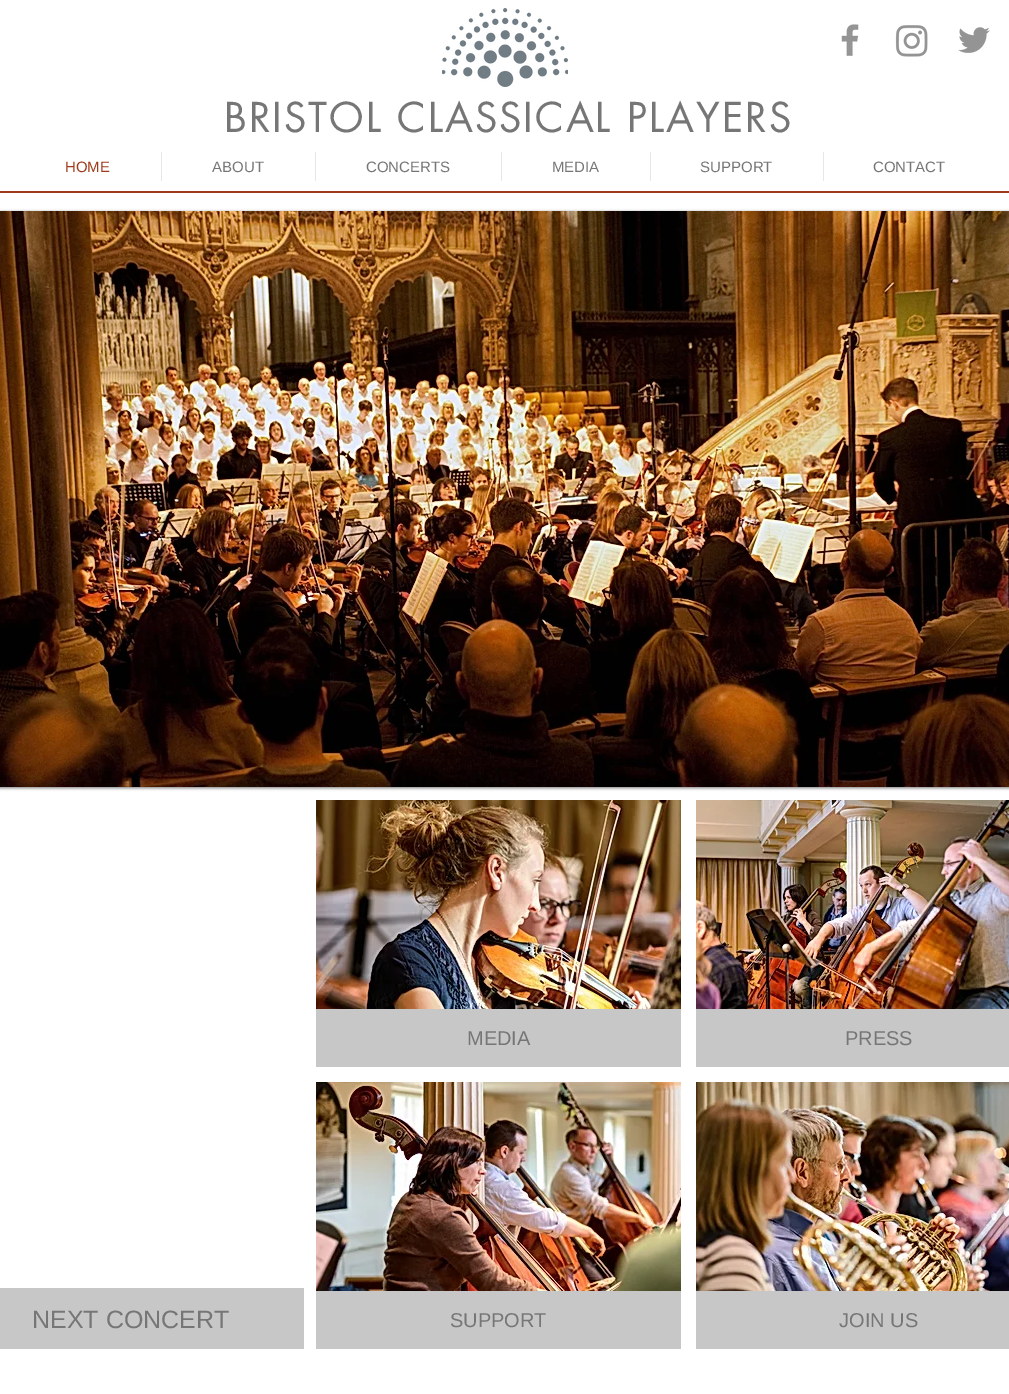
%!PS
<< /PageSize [1009 1394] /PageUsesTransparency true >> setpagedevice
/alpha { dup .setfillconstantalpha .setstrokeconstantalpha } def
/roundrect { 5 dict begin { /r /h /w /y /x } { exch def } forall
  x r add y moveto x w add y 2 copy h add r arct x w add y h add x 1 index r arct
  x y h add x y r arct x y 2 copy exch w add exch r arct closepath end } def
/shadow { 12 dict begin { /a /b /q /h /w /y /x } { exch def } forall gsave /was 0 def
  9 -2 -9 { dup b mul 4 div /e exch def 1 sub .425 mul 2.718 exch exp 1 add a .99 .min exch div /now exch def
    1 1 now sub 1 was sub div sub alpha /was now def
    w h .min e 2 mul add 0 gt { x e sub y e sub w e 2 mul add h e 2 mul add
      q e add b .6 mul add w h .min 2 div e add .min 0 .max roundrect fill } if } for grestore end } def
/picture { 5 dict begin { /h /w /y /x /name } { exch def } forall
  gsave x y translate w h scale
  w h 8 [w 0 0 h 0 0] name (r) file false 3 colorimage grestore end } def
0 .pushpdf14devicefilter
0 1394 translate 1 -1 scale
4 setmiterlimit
1 setgray
0 0 1009 1394 rectfill
(img1.rgb) 442 8 126 79 picture
(img2.rgb) 841 24 18 32 picture
(img3.rgb) 895 25 33 32 picture
(img4.rgb) 958 27 32 26 picture
/futura-Regular [40 0 0 -40 0 0] selectfont
0.463 setgray
224 132 moveto 2 0 (BRISTOL CLASSICAL PLAYERS) ashow
/LiberationSans-Regular [15 0 0 -15 0 0] selectfont
0.62 0.231 0.106 setrgbcolor
65 172 moveto (HOME) show
0.91 0.902 0.902 setrgbcolor
161 152 1 29 rectfill
0.463 setgray
212 172 moveto (ABOUT) show
0.91 0.902 0.902 setrgbcolor
315 152 1 29 rectfill
0.463 setgray
366 172 moveto (CONCERTS) show
0.91 0.902 0.902 setrgbcolor
501 152 1 29 rectfill
0.463 setgray
552 172 moveto (MEDIA) show
0.91 0.902 0.902 setrgbcolor
650 152 1 29 rectfill
0.463 setgray
700 172 moveto (SUPPORT) show
0.91 0.902 0.902 setrgbcolor
823 152 1 29 rectfill
0.463 setgray
873 172 moveto (CONTACT) show
0.62 0.231 0.106 setrgbcolor
0 191 1009 2 rectfill
0 setgray
-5 212 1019 576 0 1.5 0.5 shadow
(img5.rgb) 0 211 1009 576 picture
0.78 setgray
0 1288 304 61 rectfill
/LiberationSans-Regular [25 0 0 -25 0 0] selectfont
0.463 setgray
32 1328 moveto (NEXT CONCERT) show
(img6.rgb) 316 800 365 209 picture
0.78 setgray
316 1009 365 58 rectfill
/LiberationSans-Regular [20 0 0 -20 0 0] selectfont
0.463 setgray
467 1045 moveto (MEDIA) show
(img7.rgb) 696 800 313 209 picture
0.78 setgray
696 1009 313 58 rectfill
0.463 setgray
845 1045 moveto (PRESS) show
(img8.rgb) 316 1082 365 209 picture
0.78 setgray
316 1291 365 58 rectfill
0.463 setgray
450 1327 moveto (SUPPORT) show
(img9.rgb) 696 1082 313 209 picture
0.78 setgray
696 1291 313 58 rectfill
0.463 setgray
839 1327 moveto (JOIN US) show
.poppdf14devicefilter showpage
